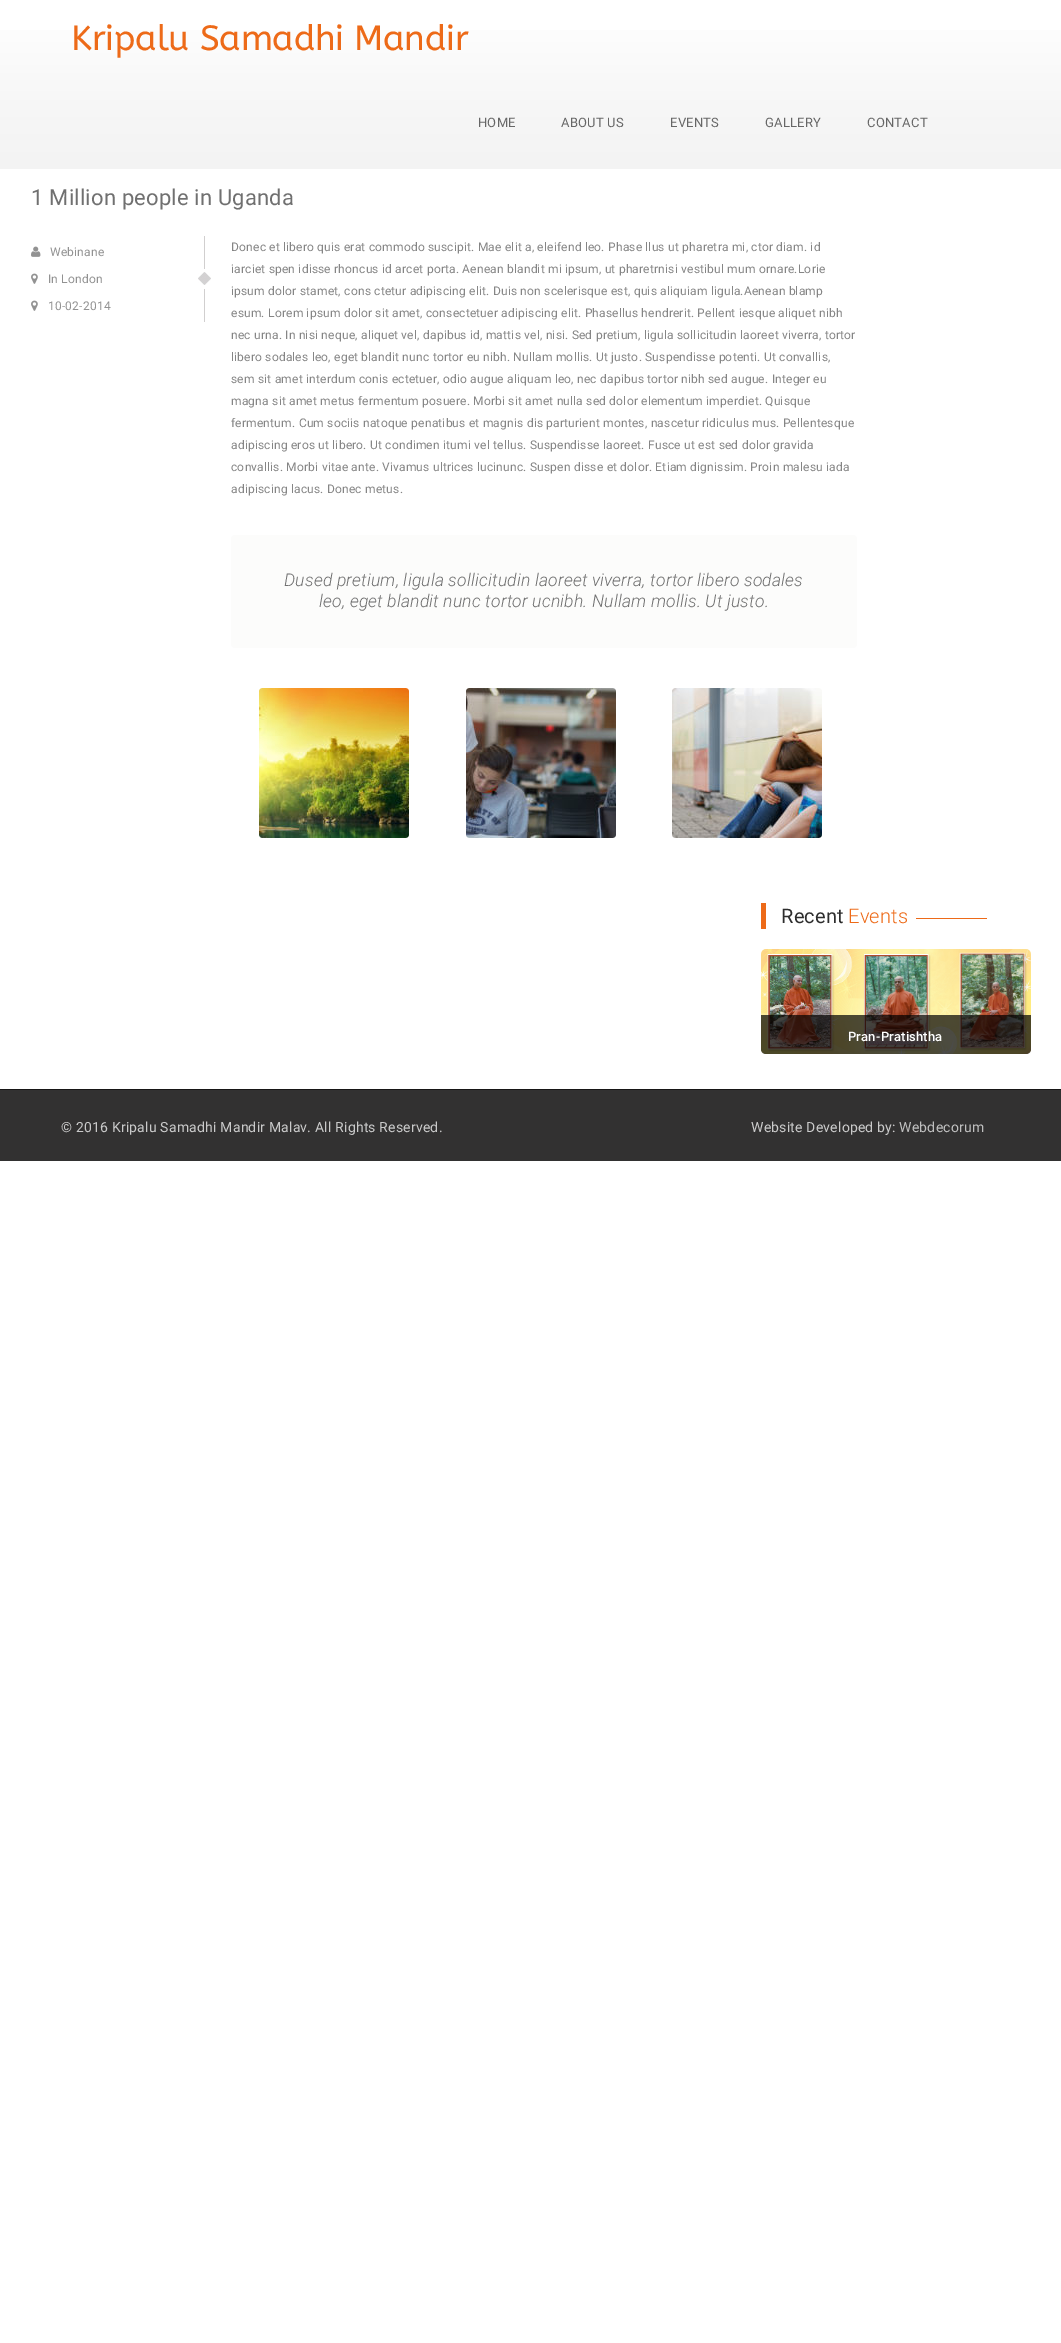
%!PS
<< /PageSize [1061 2343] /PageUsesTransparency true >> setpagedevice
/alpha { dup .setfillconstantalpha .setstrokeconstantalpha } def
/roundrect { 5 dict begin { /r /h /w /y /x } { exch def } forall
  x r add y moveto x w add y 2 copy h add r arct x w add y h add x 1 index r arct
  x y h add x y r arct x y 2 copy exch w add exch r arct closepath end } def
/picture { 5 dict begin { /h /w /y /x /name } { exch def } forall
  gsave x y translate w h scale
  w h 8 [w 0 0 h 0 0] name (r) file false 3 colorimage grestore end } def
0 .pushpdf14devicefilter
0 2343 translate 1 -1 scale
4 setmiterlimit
1 setgray
0 0 1061 2343 rectfill
gsave newpath 0 30 moveto 1061 30 lineto 1061 169 lineto 0 169 lineto closepath clip newpath
<< /ShadingType 2 /ColorSpace /DeviceRGB /Coords [531 0 531 169] /Extend [true true] /Function << /FunctionType 3 /Domain [0 1] /Functions [<< /FunctionType 2 /Domain [0 1] /C0 [1 1 1] /C1 [0.973 0.973 0.973] /N 1 >> << /FunctionType 2 /Domain [0 1] /C0 [0.973 0.973 0.973] /C1 [0.953 0.953 0.953] /N 1 >>] /Bounds [0.5] /Encode [0 1 0 1] >> >> shfill grestore
/ABeeZee-Regular [35 0 0 -35 0 0] selectfont
0.929 0.416 0.094 setrgbcolor
71 50 moveto -0.25 0 (Kripalu Samadhi Mandir) ashow
/Roboto-Regular [13 0 0 -13 0 0] selectfont
0.4 setgray
478 127 moveto 0.2 0 (HOME) ashow
561 127 moveto 0.2 0 (ABOUT US) ashow
670 127 moveto 0.2 0 (EVENTS) ashow
765 127 moveto 0.2 0 (GALLERY) ashow
867 127 moveto 0.2 0 (CONTACT) ashow
/Roboto-Regular [22 0 0 -22 0 0] selectfont
0.439 setgray
31 205 moveto 0.2 0 (1 Million people in Uganda) ashow
0.82 0.812 0.812 setrgbcolor
204 236 1 86 rectfill
(img1.rgb) 31 246 10 11 picture
/Roboto-Regular [12 0 0 -12 0 0] selectfont
0.573 setgray
50 256 moveto 0.2 0 (Webinane) ashow
(img2.rgb) 31 273 7 11 picture
48 283 moveto 0.2 0 (In London) ashow
1 setgray
204 269 1 20 rectfill
(img3.rgb) 198 272 13 13 picture
(img2.rgb) 31 300 7 11 picture
0.573 setgray
48 310 moveto 0.2 0 (10-02-2014) ashow
0.522 setgray
231 251 moveto 0.2 0 (Donec et libero quis erat commodo suscipit. Mae elit a, eleifend leo. Phase llus ut pharetra mi, ctor diam. id) ashow
231 273 moveto 0.2 0 (iarciet spen idisse rhoncus id arcet porta. Aenean blandit mi ipsum, ut pharetrnisi vestibul mum ornare.Lorie) ashow
231 295 moveto 0.2 0 (ipsum dolor stamet, cons ctetur adipiscing elit. Duis non scelerisque est, quis aliquiam ligula.Aenean blamp) ashow
231 317 moveto 0.2 0 (esum. Lorem ipsum dolor sit amet, consectetuer adipiscing elit. Phasellus hendrerit. Pellent iesque aliquet nibh) ashow
231 339 moveto 0.2 0 (nec urna. In nisi neque, aliquet vel, dapibus id, mattis vel, nisi. Sed pretium, ligula sollicitudin laoreet viverra, tortor) ashow
231 361 moveto 0.2 0 (libero sodales leo, eget blandit nunc tortor eu nibh. Nullam mollis. Ut justo. Suspendisse potenti. Ut convallis,) ashow
231 383 moveto 0.2 0 (sem sit amet interdum conis ectetuer, odio augue aliquam leo, nec dapibus tortor nibh sed augue. Integer eu) ashow
231 405 moveto 0.2 0 (magna sit amet metus fermentum posuere. Morbi sit amet nulla sed dolor elementum imperdiet. Quisque) ashow
231 427 moveto 0.2 0 (fermentum. Cum sociis natoque penatibus et magnis dis parturient montes, nascetur ridiculus mus. Pellentesque) ashow
231 449 moveto 0.2 0 (adipiscing eros ut libero. Ut condimen itumi vel tellus. Suspendisse laoreet. Fusce ut est sed dolor gravida) ashow
231 471 moveto 0.2 0 (convallis. Morbi vitae ante. Vivamus ultrices lucinunc. Suspen disse et dolor. Etiam dignissim. Proin malesu iada) ashow
231 493 moveto 0.2 0 (adipiscing lacus. Donec metus.) ashow
0.988 0.988 0.984 setrgbcolor
231 535 626 113 4 roundrect fill
/Roboto-LightItalic [17.5 0 0 -17.5 0 0] selectfont
0.439 setgray
284 586 moveto 0.2 0 (Dused pretium, ligula sollicitudin laoreet viverra, tortor libero sodales) ashow
319 607 moveto 0.2 0 (leo, eget blandit nunc tortor ucnibh. Nullam mollis. Ut justo.) ashow
(img4.rgb) 259 688 150 150 picture
(img5.rgb) 466 688 150 150 picture
(img6.rgb) 672 688 150 150 picture
0.929 0.416 0.094 setrgbcolor
761 903 5 26 rectfill
/Roboto-Regular [20 0 0 -20 0 0] selectfont
0.176 setgray
781 923 moveto 0.2 0 (Recent) ashow
/Roboto-Light [20 0 0 -20 0 0] selectfont
0.929 0.416 0.094 setrgbcolor
848 923 moveto 0.2 0 (Events) ashow
916 918 71 1 rectfill
(img7.rgb) 761 949 270 105 picture
0.7 alpha
0 setgray
newpath 761 1015 moveto 1031 1015 lineto 1031 1049 lineto 1031 1052 1029 1054 1026 1054 curveto 766 1054 lineto 763 1054 761 1052 761 1049 curveto closepath fill
/Roboto-Medium [13 0 0 -13 0 0] selectfont
1 alpha
1 setgray
848 1041 moveto 0.2 0 (Pran-Pratishtha) ashow
0.196 0.192 0.192 setrgbcolor
0 1090 1061 71 rectfill
0.09 0.086 0.086 setrgbcolor
0 1089 1061 1 rectfill
/Roboto-Regular [14 0 0 -14 0 0] selectfont
0.792 setgray
61 1132 moveto 0.2 0 (© 2016 Kripalu Samadhi Mandir Malav. All Rights Reserved.) ashow
751 1132 moveto 0.2 0 (Website Developed by:) ashow
0.749 setgray
899 1132 moveto 0.25 0 (Webdecorum) ashow
.poppdf14devicefilter showpage
